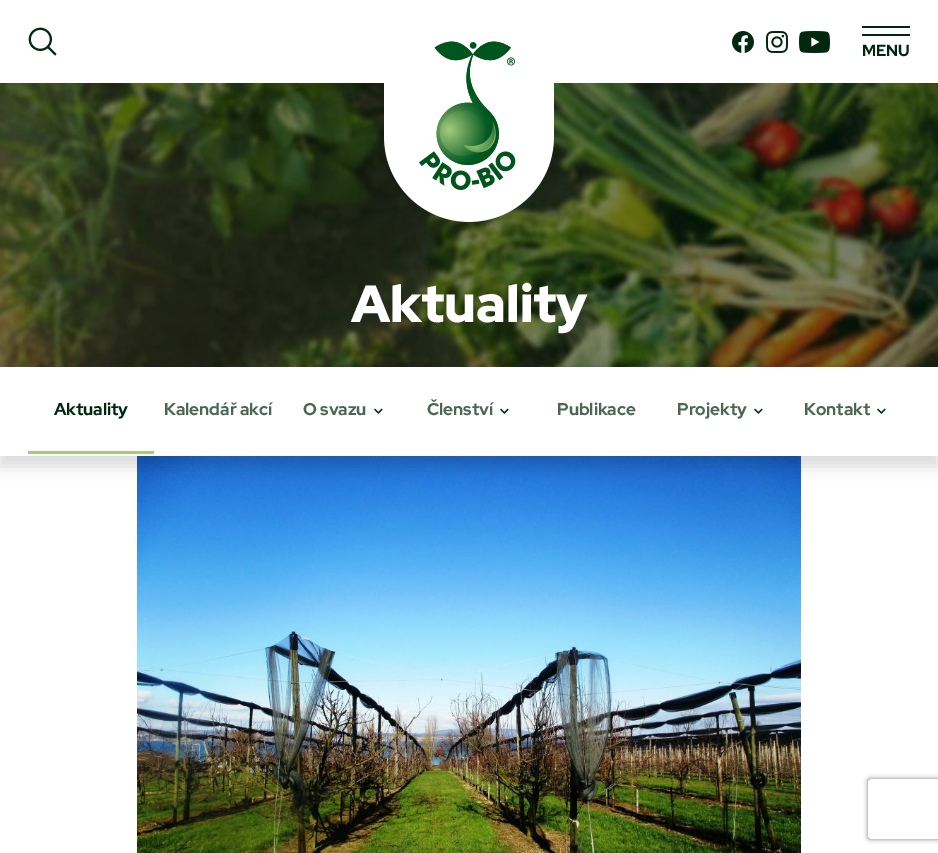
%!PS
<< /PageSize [938 853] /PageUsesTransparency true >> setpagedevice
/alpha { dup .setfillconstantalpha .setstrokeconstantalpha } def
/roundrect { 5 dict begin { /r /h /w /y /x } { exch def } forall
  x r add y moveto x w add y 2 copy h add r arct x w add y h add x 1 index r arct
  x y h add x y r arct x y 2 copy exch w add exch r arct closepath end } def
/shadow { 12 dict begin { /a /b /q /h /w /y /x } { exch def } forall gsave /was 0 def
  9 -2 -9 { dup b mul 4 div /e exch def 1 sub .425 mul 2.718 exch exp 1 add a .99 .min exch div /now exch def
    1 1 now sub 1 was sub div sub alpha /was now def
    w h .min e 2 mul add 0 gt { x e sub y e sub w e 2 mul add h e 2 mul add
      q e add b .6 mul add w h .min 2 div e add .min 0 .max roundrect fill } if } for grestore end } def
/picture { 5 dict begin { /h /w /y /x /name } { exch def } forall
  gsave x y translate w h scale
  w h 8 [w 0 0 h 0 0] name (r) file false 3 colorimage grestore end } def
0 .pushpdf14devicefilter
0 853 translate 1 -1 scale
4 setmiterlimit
1 setgray
0 0 938 853 rectfill
(img1.rgb) 28 27 29 29 picture
(img6.rgb) 0 83 938 284 picture
(img2.rgb) 384 41 170 181 picture
(img3.rgb) 732 31 22 22 picture
(img4.rgb) 766 31 22 22 picture
(img5.rgb) 799 31 31 22 picture
0 0.157 0.055 setrgbcolor
862 26 48 2 rectfill
862 34 48 2 rectfill
/RedHatDisplay-Bold [16 0 0 -16 0 0] selectfont
862 56 moveto (MENU) show
/RedHatDisplay-Black [52 0 0 -52 0 0] selectfont
1 setgray
351 322 moveto (Aktuality) show
(img8.rgb) 137 456 664 397 picture
0 setgray
0 377 938 89 0 7.5 0.15 shadow
1 setgray
0 367 938 89 rectfill
0.639 0.8 0.49 setrgbcolor
28 451 126 3 rectfill
/RedHatDisplay-Bold [17 0 0 -17 0 0] selectfont
0 0.157 0.055 setrgbcolor
54 415 moveto (Aktuality) show
0.29 0.404 0.329 setrgbcolor
164 415 moveto (Kalendář akcí) show
303 415 moveto (O svazu) show
(img7.rgb) 374 408 9 6 picture
427 415 moveto (Členství) show
(img7.rgb) 500 408 9 6 picture
557 415 moveto (Publikace) show
677 415 moveto (Projekty) show
(img7.rgb) 754 408 9 6 picture
804 415 moveto (Kontakt) show
(img7.rgb) 877 408 9 6 picture
gsave
newpath 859 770 moveto 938 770 lineto 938 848 lineto 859 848 lineto closepath 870 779 moveto 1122 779 lineto 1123 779 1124 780 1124 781 curveto 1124 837 lineto 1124 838 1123 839 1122 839 curveto 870 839 lineto 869 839 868 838 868 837 curveto 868 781 lineto 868 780 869 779 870 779 curveto closepath eoclip newpath
0.502 setgray
868 779 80 60 2 2.5 1 shadow
grestore
.poppdf14devicefilter showpage
